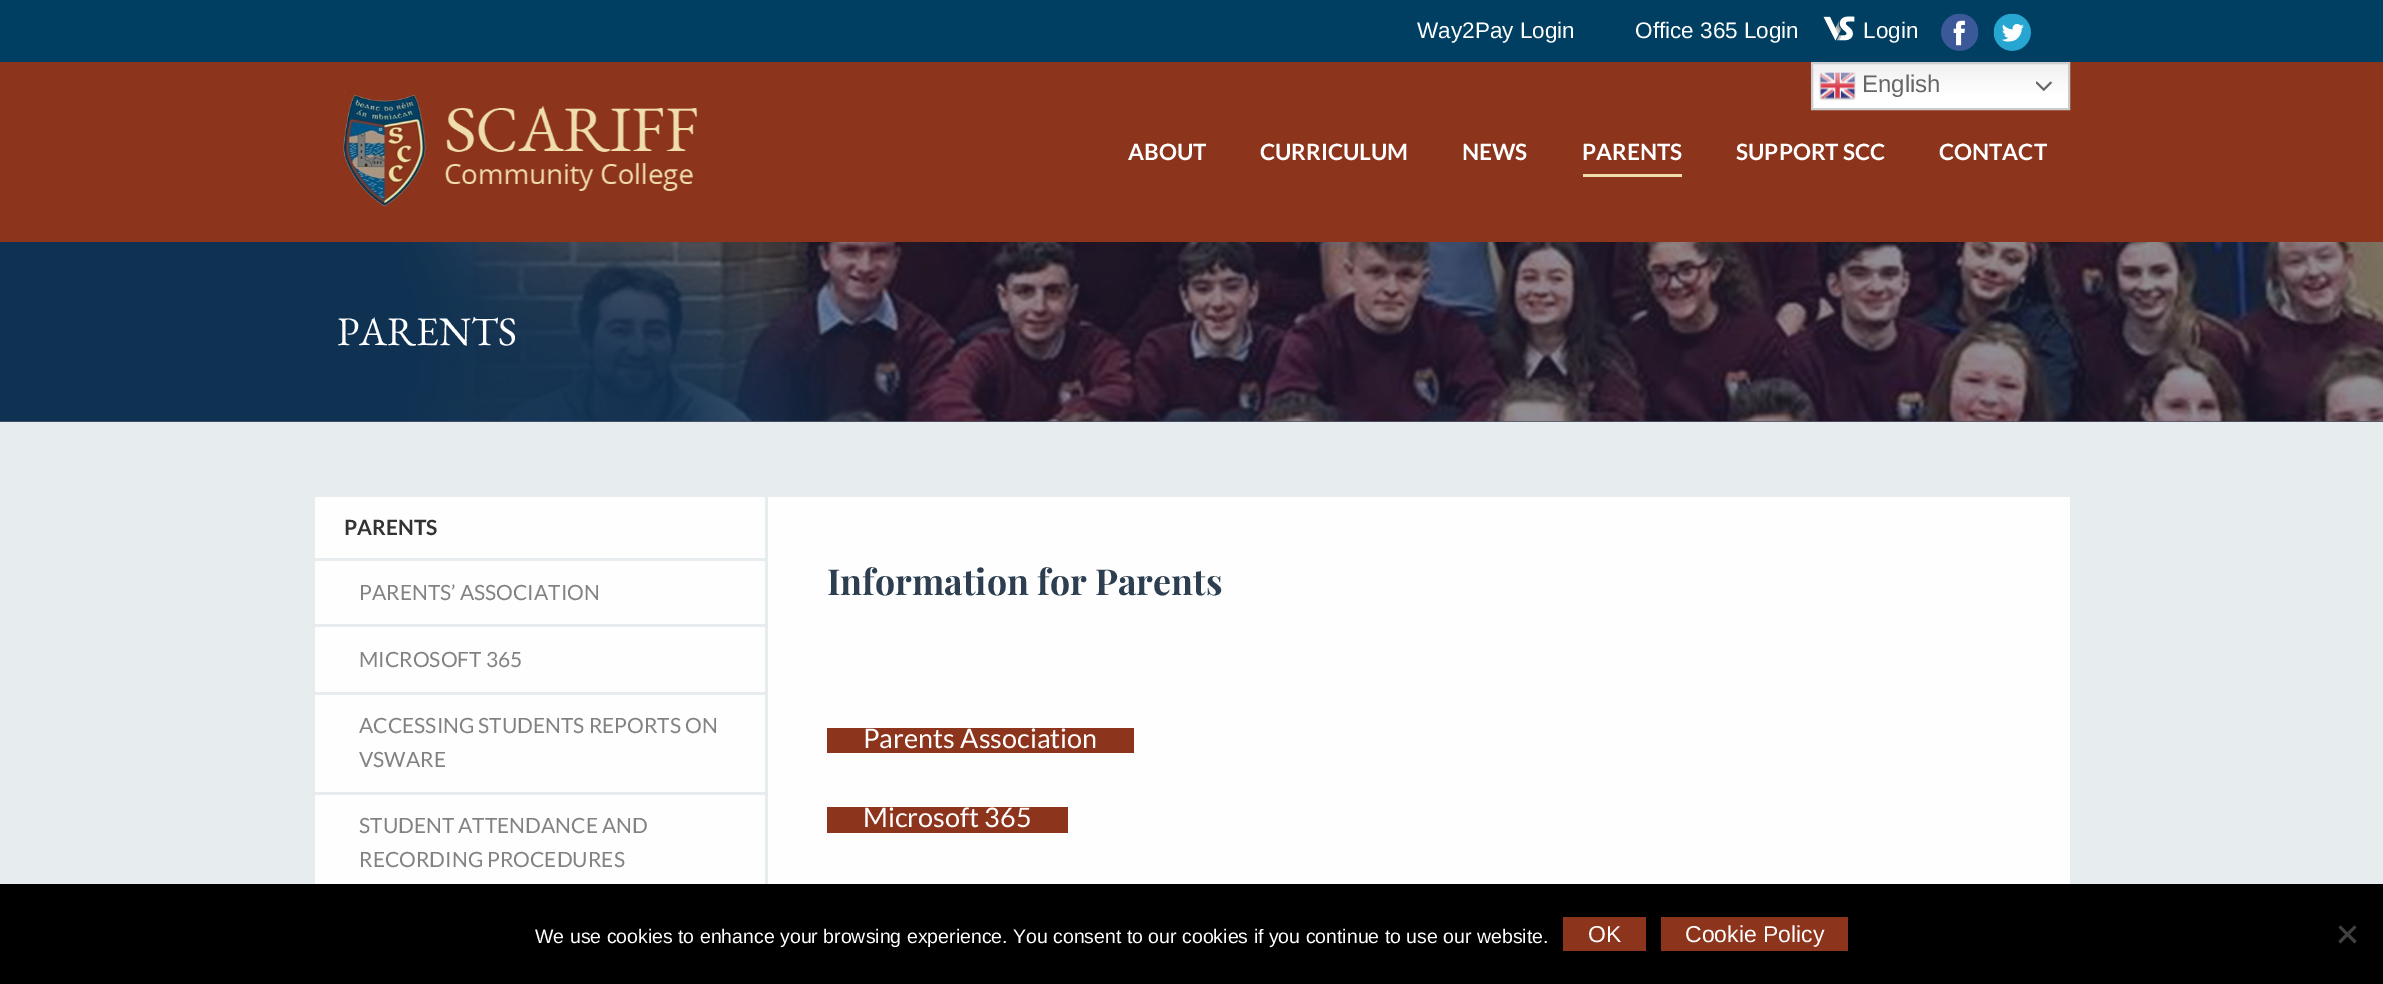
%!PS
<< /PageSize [2383 984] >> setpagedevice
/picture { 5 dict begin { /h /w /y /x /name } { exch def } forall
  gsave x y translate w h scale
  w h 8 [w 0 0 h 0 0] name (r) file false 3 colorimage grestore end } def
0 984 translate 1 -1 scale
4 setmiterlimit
0.906 0.925 0.937 setrgbcolor
0 0 2383 984 rectfill
0 0.247 0.384 setrgbcolor
0 0 2383 62 rectfill
/LiberationSans-Regular [22.5 0 0 -22.5 0 0] selectfont
1 setgray
1417 38 moveto (Way2Pay Login) show
1635 38 moveto (Office 365 Login) show
(img1.rgb) 1823 16 32 25 picture
1863 38 moveto (Login) show
(img2.rgb) 1941 13 38 38 picture
(img3.rgb) 1993 13 38 38 picture
0.553 0.204 0.11 setrgbcolor
0 62 2383 180 rectfill
gsave newpath 1813 64 moveto 2068 64 lineto 2068 108 lineto 1813 108 lineto closepath clip newpath
<< /ShadingType 2 /ColorSpace /DeviceRGB /Coords [1940 61 1940 110] /Extend [true true] /Function << /FunctionType 3 /Domain [0 1] /Functions [<< /FunctionType 2 /Domain [0 1] /C0 [0.937 0.937 0.937] /C1 [1 1 1] /N 1 >> << /FunctionType 2 /Domain [0 1] /C0 [1 1 1] /C1 [1 1 1] /N 1 >>] /Bounds [0.7] /Encode [0 1 0 1] >> >> shfill grestore
0.8 setgray
2 setlinewidth
1812 63 257 46 rectstroke
(img4.rgb) 1819 72 37 29 picture
/LiberationSans-Regular [24 0 0 -24 0 0] selectfont
0.4 setgray
1862 92 moveto (English) show
(img5.rgb) 2036 81 16 10 picture
(img6.rgb) 343 92 354 114 picture
/Lato-Bold [22.5 0 0 -22.5 0 0] selectfont
1 setgray
1128 160 moveto (ABOUT) show
1260 160 moveto (CURRICULUM) show
1462 160 moveto (NEWS) show
1582 160 moveto (PARENTS) show
0.937 0.867 0.667 setrgbcolor
1583 174 99 3 rectfill
1 setgray
1736 160 moveto (SUPPORT SCC) show
1939 160 moveto (CONTACT) show
0.322 0.341 0.431 setrgbcolor
0 421 2383 1 rectfill
(img7.rgb) 0 242 2383 180 picture
/EBGaramond-Regular [40.5 0 0 -40.5 0 0] selectfont
1 setgray
337 345 moveto (PARENTS) show
0.996 setgray
315 497 450 387 rectfill
0.906 0.925 0.937 setrgbcolor
315 558 450 3 rectfill
/Lato-Bold [21 0 0 -21 0 0] selectfont
0.2 setgray
344 535 moveto (PARENTS) show
0.906 0.925 0.937 setrgbcolor
315 624 450 3 rectfill
/Lato-Regular [21 0 0 -21 0 0] selectfont
0.506 0.51 0.514 setrgbcolor
359 600 moveto (PARENTS’ ASSOCIATION) show
0.906 0.925 0.937 setrgbcolor
315 692 450 3 rectfill
0.506 0.51 0.514 setrgbcolor
359 667 moveto (MICROSOFT 365) show
0.906 0.925 0.937 setrgbcolor
315 792 450 3 rectfill
0.506 0.51 0.514 setrgbcolor
359 733 moveto (ACCESSING STUDENTS REPORTS ON) show
359 767 moveto (VSWARE) show
359 833 moveto (STUDENT ATTENDANCE AND) show
359 867 moveto (RECORDING PROCEDURES) show
0.996 setgray
768 497 1302 387 rectfill
/PlayfairDisplay-Bold [35.75 0 0 -35.75 0 0] selectfont
0.173 0.243 0.314 setrgbcolor
827 595 moveto (Information for Parents) show
0.553 0.204 0.11 setrgbcolor
827 728 307 25 rectfill
/Lato-Regular [27 0 0 -27 0 0] selectfont
1 setgray
863 748 moveto (Parents Association) show
0.553 0.204 0.11 setrgbcolor
827 807 241 26 rectfill
1 setgray
863 827 moveto (Microsoft 365) show
0 setgray
0 884 2383 100 rectfill
/LiberationSans-Regular [19.5 0 0 -19.5 0 0] selectfont
1 setgray
535 943 moveto (We use cookies to enhance your browsing experience. You consent to our cookies if you continue to use our website.) show
0.553 0.204 0.11 setrgbcolor
1563 917 83 34 rectfill
/LiberationSans-Regular [23 0 0 -23 0 0] selectfont
1 setgray
1588 942 moveto (OK) show
0.553 0.204 0.11 setrgbcolor
1661 917 187 34 rectfill
1 setgray
1685 942 moveto (Cookie Policy) show
0.251 setgray
newpath 2354.5 925.5 moveto 2356.5 927.5 lineto 2340.5 943.5 lineto 2338.5 941 lineto closepath fill
newpath 2338.5 927.5 moveto 2340.5 925.5 lineto 2356.5 941 lineto 2354.5 943.5 lineto closepath fill
showpage
